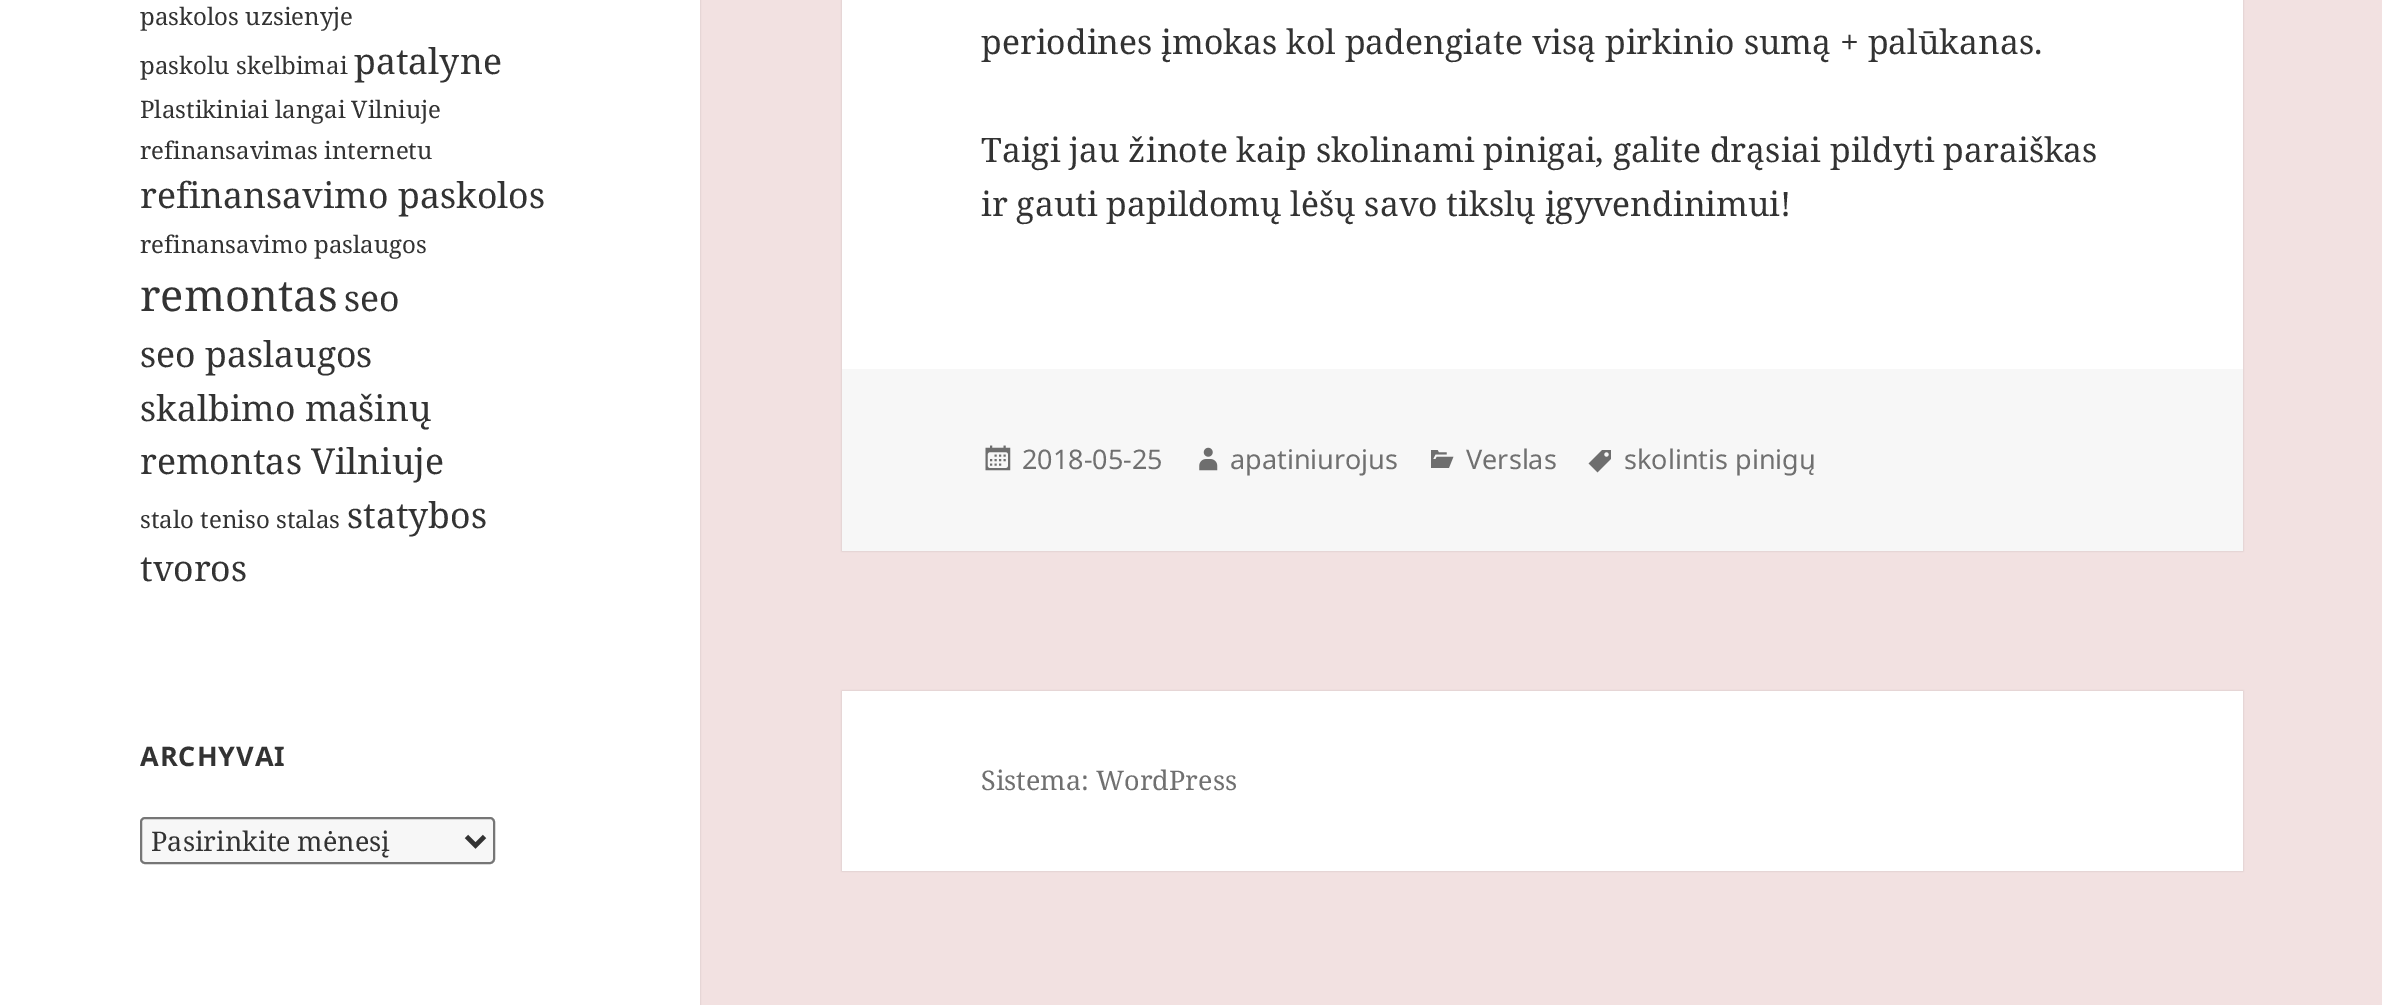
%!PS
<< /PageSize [2382 1005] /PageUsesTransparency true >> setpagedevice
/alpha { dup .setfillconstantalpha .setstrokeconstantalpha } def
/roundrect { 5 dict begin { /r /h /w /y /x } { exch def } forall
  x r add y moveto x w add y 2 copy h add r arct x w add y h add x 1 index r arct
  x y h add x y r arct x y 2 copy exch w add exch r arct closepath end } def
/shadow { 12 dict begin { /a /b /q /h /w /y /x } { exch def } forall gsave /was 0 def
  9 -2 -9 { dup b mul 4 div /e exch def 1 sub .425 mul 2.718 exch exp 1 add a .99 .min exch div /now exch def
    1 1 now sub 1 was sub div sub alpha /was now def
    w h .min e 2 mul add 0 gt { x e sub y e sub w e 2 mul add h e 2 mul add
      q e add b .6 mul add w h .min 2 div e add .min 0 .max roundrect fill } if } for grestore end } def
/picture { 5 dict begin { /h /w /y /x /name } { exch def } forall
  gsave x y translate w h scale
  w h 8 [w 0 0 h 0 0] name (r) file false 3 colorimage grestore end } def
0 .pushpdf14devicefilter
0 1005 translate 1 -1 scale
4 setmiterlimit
0.949 0.882 0.882 setrgbcolor
0 0 2382 1005 rectfill
0 setgray
0 0 700 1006 0 1 0.15 shadow
1 setgray
0 0 700 1005 rectfill
/NotoSerif-Regular [24 0 0 -24 0 0] selectfont
0.2 setgray
140 25 moveto (paskolos uzsienyje) show
140 74 moveto (paskolu skelbimai) show
/NotoSerif-Regular [35.6 0 0 -35.6 0 0] selectfont
354 74 moveto (patalyne) show
/NotoSerif-Regular [24 0 0 -24 0 0] selectfont
140 118 moveto (Plastikiniai langai Vilniuje) show
140 159 moveto (refinansavimas internetu) show
/NotoSerif-Regular [35.6 0 0 -35.6 0 0] selectfont
140 208 moveto (refinansavimo paskolos) show
/NotoSerif-Regular [24 0 0 -24 0 0] selectfont
140 253 moveto (refinansavimo paslaugos) show
/NotoSerif-Regular [43.5 0 0 -43.5 0 0] selectfont
140 311 moveto (remontas) show
/NotoSerif-Regular [35.6 0 0 -35.6 0 0] selectfont
344 311 moveto (seo) show
140 367 moveto (seo paslaugos) show
140 421 moveto (skalbimo mašinų) show
140 474 moveto (remontas Vilniuje) show
/NotoSerif-Regular [24 0 0 -24 0 0] selectfont
140 528 moveto (stalo teniso stalas) show
/NotoSerif-Regular [35.6 0 0 -35.6 0 0] selectfont
347 528 moveto (statybos) show
140 581 moveto (tvoros) show
/NotoSans-Bold [27 0 0 -27 0 0] selectfont
140 766 moveto 1 0 (ARCHYVAI) ashow
0.969 setgray
141 818 353 45 4 roundrect gsave fill grestore
0.463 setgray
2 setlinewidth
stroke
0.2 setgray
4.5 setlinewidth
newpath 466.5 836.5 moveto 475.5 845.5 lineto 484.5 836.5 lineto stroke
/NotoSerif-Regular [27 0 0 -27 0 0] selectfont
151 851 moveto (Pasirinkite mėnesį) show
0 setgray
842 -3 1401 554 0 1 0.15 shadow
1 setgray
842 0 1401 369 rectfill
/NotoSerif-Regular [33.75 0 0 -33.75 0 0] selectfont
0.2 setgray
981 54 moveto (periodines įmokas kol padengiate visą pirkinio sumą + palūkanas.) show
981 162 moveto (Taigi jau žinote kaip skolinami pinigai, galite drąsiai pildyti paraiškas) show
981 216 moveto (ir gauti papildomų lėšų savo tikslų įgyvendinimui!) show
0.969 setgray
842 369 1401 182 rectfill
(img1.rgb) 985 445 26 26 picture
/NotoSans-Regular [27 0 0 -27 0 0] selectfont
0.439 setgray
1022 469 moveto (2018-05-25) show
(img2.rgb) 1199 447 19 24 picture
1230 469 moveto (apatiniurojus) show
(img3.rgb) 1431 450 23 18 picture
1466 469 moveto (Verslas) show
(img4.rgb) 1588 450 23 23 picture
1624 469 moveto (skolintis pinigų) show
0 setgray
842 691 1401 180 0 1 0.15 shadow
1 setgray
842 691 1401 180 rectfill
/NotoSerif-Regular [27 0 0 -27 0 0] selectfont
0.439 setgray
981 790 moveto (Sistema: WordPress) show
.poppdf14devicefilter showpage
